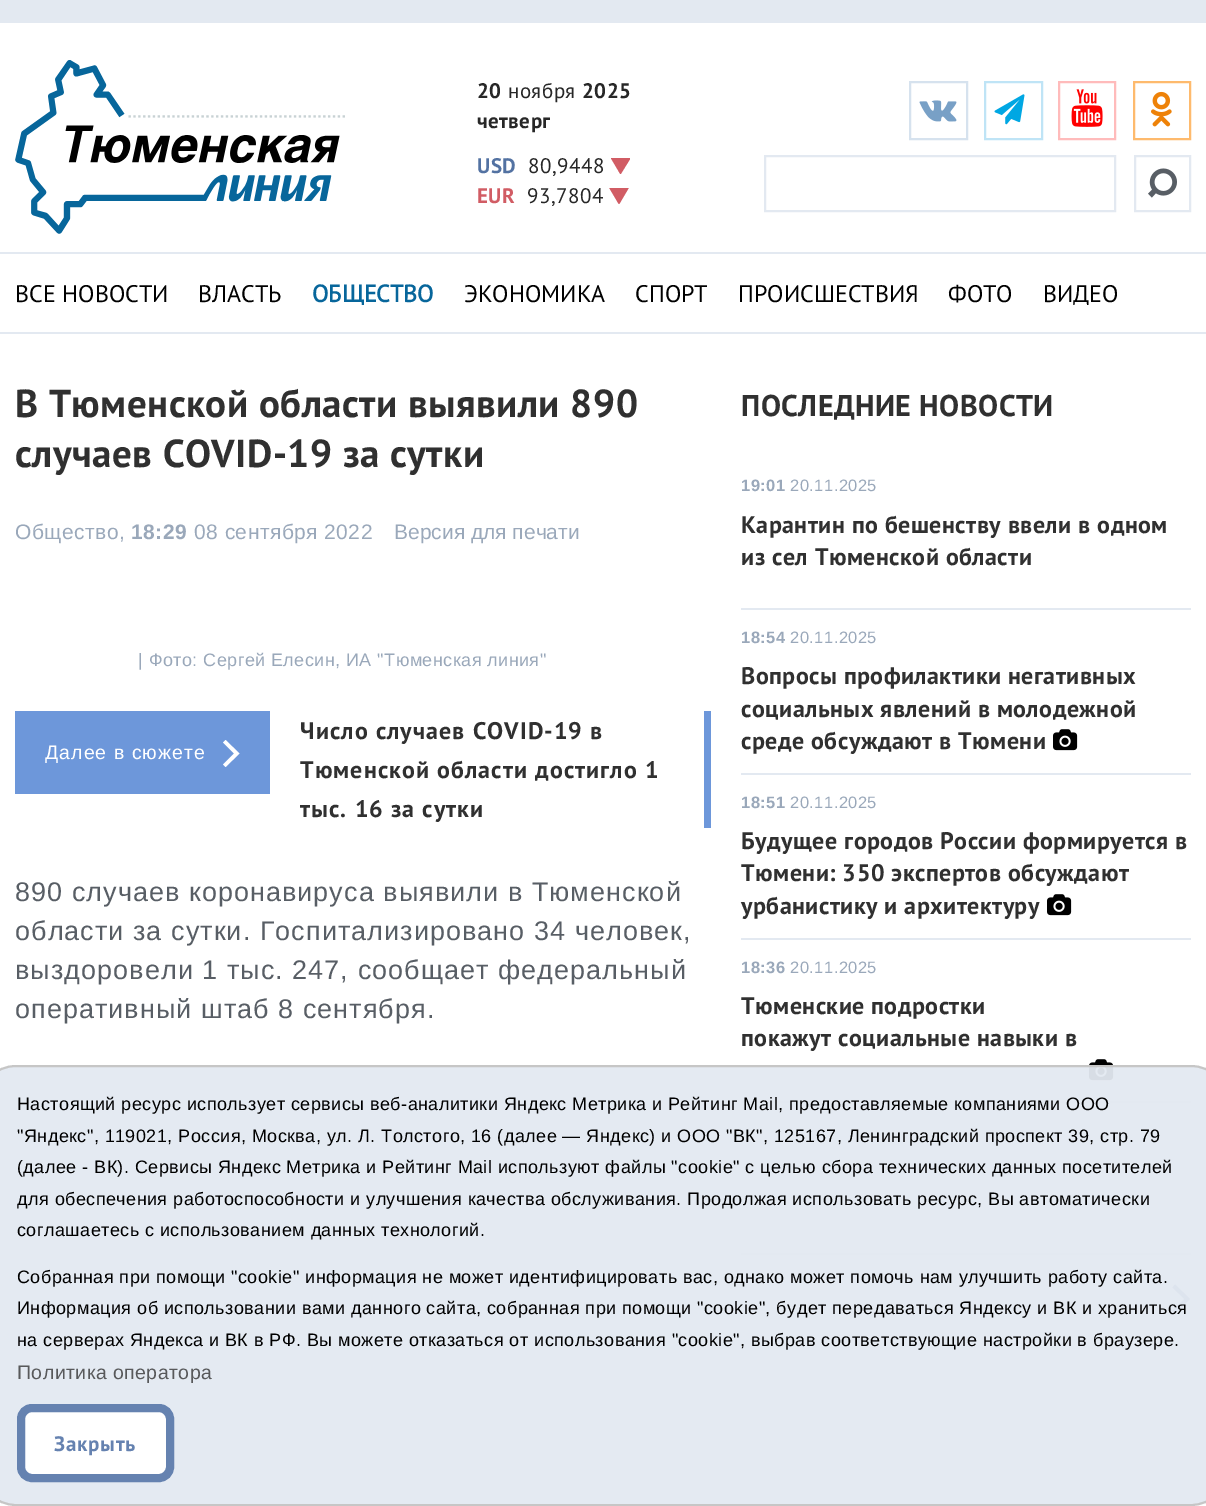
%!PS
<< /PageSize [1206 1506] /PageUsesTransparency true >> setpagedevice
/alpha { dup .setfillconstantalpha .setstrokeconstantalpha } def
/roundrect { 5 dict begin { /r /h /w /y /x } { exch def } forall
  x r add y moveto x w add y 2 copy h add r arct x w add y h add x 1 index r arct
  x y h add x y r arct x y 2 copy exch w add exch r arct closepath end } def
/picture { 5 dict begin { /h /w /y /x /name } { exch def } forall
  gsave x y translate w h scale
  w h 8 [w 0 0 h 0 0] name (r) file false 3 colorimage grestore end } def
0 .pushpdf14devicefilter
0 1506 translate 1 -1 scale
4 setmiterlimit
1 setgray
0 0 1206 1506 rectfill
0.89 0.914 0.945 setrgbcolor
0 0 1206 23 rectfill
(img1.rgb) 15 60 330 174 picture
/PTSans-Bold [21 0 0 -21 0 0] selectfont
0.153 setgray
477 98 moveto 0.45 0 (20) ashow
/PTSans-Regular [21 0 0 -21 0 0] selectfont
508 98 moveto 0.45 0 (ноября) ashow
/PTSans-Bold [21 0 0 -21 0 0] selectfont
582 98 moveto 0.45 0 (2025) ashow
477 128 moveto 0.45 0 (четверг) ashow
0.325 0.447 0.635 setrgbcolor
477 173 moveto 0.45 0 (USD) ashow
/PTSans-Regular [21 0 0 -21 0 0] selectfont
0.153 setgray
528 173 moveto 0.45 0 (80,9448) ashow
gsave
611 158 19 16 rectclip
0.82 0.361 0.392 setrgbcolor
newpath 620.5 157.5 moveto 631 157.5 lineto 620.5 174.5 lineto 610.5 157.5 lineto closepath fill
grestore
/PTSans-Bold [21 0 0 -21 0 0] selectfont
0.82 0.361 0.392 setrgbcolor
477 203 moveto 0.45 0 (EUR) ashow
/PTSans-Regular [21 0 0 -21 0 0] selectfont
0.153 setgray
527 203 moveto 0.45 0 (93,7804) ashow
gsave
609 188 20 16 rectclip
0.82 0.361 0.392 setrgbcolor
newpath 619 187.5 moveto 629 187.5 lineto 619 204.5 lineto 609 187.5 lineto closepath fill
grestore
0.839 0.886 0.933 setrgbcolor
2 setlinewidth
910 82 57 57 rectstroke
(img2.rgb) 919 100 38 22 picture
0.749 0.894 0.965 setrgbcolor
985 82 57 57 rectstroke
(img3.rgb) 994 94 31 31 picture
1 0.733 0.733 setrgbcolor
1059 82 56 57 rectstroke
(img4.rgb) 1071 89 32 38 picture
0.996 0.729 0.427 setrgbcolor
1134 82 56 57 rectstroke
(img5.rgb) 1151 91 21 36 picture
0.89 0.914 0.945 setrgbcolor
765 156 350 55 rectstroke
1135 156 55 55 rectstroke
(img6.rgb) 1148 168 29 30 picture
0 252 1206 2 rectfill
/PTSans-Regular [24 0 0 -24 0 0] selectfont
0 setgray
15 302 moveto (ВСЕ НОВОСТИ) show
198 302 moveto (ВЛАСТЬ) show
/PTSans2-Bold [24 0 0 -24 0 0] selectfont
0.027 0.4 0.608 setrgbcolor
312 302 moveto (ОБЩЕСТВО) show
/PTSans-Regular [24 0 0 -24 0 0] selectfont
0 setgray
464 302 moveto (ЭКОНОМИКА) show
635 302 moveto (СПОРТ) show
738 302 moveto (ПРОИСШЕСТВИЯ) show
948 302 moveto (ФОТО) show
1043 302 moveto (ВИДЕО) show
0.89 0.914 0.945 setrgbcolor
0 332 1206 2 rectfill
/PTSans-Bold [39 0 0 -39 0 0] selectfont
0.188 setgray
15 417 moveto 0.45 0 (В Тюменской области выявили 890) ashow
15 467 moveto 0.45 0 (случаев COVID-19 за сутки) ashow
/LiberationSans-Regular [21 0 0 -21 0 0] selectfont
0.604 0.659 0.729 setrgbcolor
15 539 moveto 0.45 0 (Общество,) ashow
/LiberationSans-Bold [21 0 0 -21 0 0] selectfont
131 539 moveto 0.45 0 (18:29) ashow
/LiberationSans-Regular [21 0 0 -21 0 0] selectfont
194 539 moveto 0.45 0 (08 сентября 2022) ashow
394 539 moveto (Версия для печати) show
/LiberationSans-Regular [18 0 0 -18 0 0] selectfont
138 666 moveto 0.45 0 (| Фото: Сергей Елесин, ИА "Тюменская линия") ashow
0.427 0.592 0.855 setrgbcolor
15 711 255 83 rectfill
/LiberationSans-Regular [19.5 0 0 -19.5 0 0] selectfont
1 setgray
45 759 moveto 1.05 0 (Далее в сюжете) ashow
newpath 225.5 740 moveto 223 742.5 lineto 234 753.5 lineto 223 764.5 lineto 225.5 767 lineto 239.5 753.5 lineto closepath fill
0.427 0.592 0.855 setrgbcolor
704 711 7 117 rectfill
/PTSans-Bold [24 0 0 -24 0 0] selectfont
0.188 setgray
300 739 moveto 1.05 0 (Число случаев COVID-19 в) ashow
300 778 moveto 1.05 0 (Тюменской области достигло 1) ashow
300 817 moveto 1.05 0 (тыс. 16 за сутки) ashow
/LiberationSans-Regular [27 0 0 -27 0 0] selectfont
0.345 0.369 0.396 setrgbcolor
15 901 moveto 1.05 0 (890 случаев коронавируса выявили в Тюменской) ashow
15 940 moveto 1.05 0 (области за сутки. Госпитализировано 34 человек,) ashow
15 979 moveto 1.05 0 (выздоровели 1 тыс. 247, сообщает федеральный) ashow
15 1018 moveto 1.05 0 (оперативный штаб 8 сентября.) ashow
/PTSans-Bold [30 0 0 -30 0 0] selectfont
0.188 setgray
741 416 moveto 0.45 0 (ПОСЛЕДНИЕ НОВОСТИ) ashow
0.89 0.914 0.945 setrgbcolor
741 608 450 2 rectfill
/LiberationSans-Bold [16.5 0 0 -16.5 0 0] selectfont
0.604 0.659 0.729 setrgbcolor
741 491 moveto 0.45 0 (19:01) ashow
/LiberationSans-Regular [16.5 0 0 -16.5 0 0] selectfont
790 491 moveto 0.45 0 (20.11.2025) ashow
/PTSans-Bold [24 0 0 -24 0 0] selectfont
0.188 setgray
741 533 moveto 0.45 0 (Карантин по бешенству ввели в одном) ashow
741 565 moveto 0.45 0 (из сел Тюменской области) ashow
0.89 0.914 0.945 setrgbcolor
741 773 450 2 rectfill
/LiberationSans-Bold [16.5 0 0 -16.5 0 0] selectfont
0.604 0.659 0.729 setrgbcolor
741 643 moveto 0.45 0 (18:54) ashow
/LiberationSans-Regular [16.5 0 0 -16.5 0 0] selectfont
790 643 moveto 0.45 0 (20.11.2025) ashow
/PTSans-Bold [24 0 0 -24 0 0] selectfont
0.188 setgray
741 684 moveto 0.45 0 (Вопросы профилактики негативных) ashow
741 717 moveto 0.45 0 (социальных явлений в молодежной) ashow
741 749 moveto 0.45 0 (среде обсуждают в Тюмени) ashow
(img7.rgb) 1053 729 25 22 picture
0.89 0.914 0.945 setrgbcolor
741 938 450 2 rectfill
/LiberationSans-Bold [16.5 0 0 -16.5 0 0] selectfont
0.604 0.659 0.729 setrgbcolor
741 808 moveto 0.45 0 (18:51) ashow
/LiberationSans-Regular [16.5 0 0 -16.5 0 0] selectfont
790 808 moveto 0.45 0 (20.11.2025) ashow
/PTSans-Bold [24 0 0 -24 0 0] selectfont
0.188 setgray
741 849 moveto 0.45 0 (Будущее городов России формируется в) ashow
741 881 moveto 0.45 0 (Тюмени: 350 экспертов обсуждают) ashow
741 914 moveto 0.45 0 (урбанистику и архитектуру) ashow
(img7.rgb) 1047 894 25 22 picture
0.89 0.914 0.945 setrgbcolor
741 1101 450 2 rectfill
/LiberationSans-Bold [16.5 0 0 -16.5 0 0] selectfont
0.604 0.659 0.729 setrgbcolor
741 973 moveto 0.45 0 (18:36) ashow
/LiberationSans-Regular [16.5 0 0 -16.5 0 0] selectfont
790 973 moveto 0.45 0 (20.11.2025) ashow
/PTSans-Bold [24 0 0 -24 0 0] selectfont
0.188 setgray
741 1014 moveto 0.45 0 (Тюменские подростки) ashow
741 1046 moveto 0.45 0 (покажут социальные навыки в) ashow
(img7.rgb) 1089 1059 25 22 picture
0.89 0.914 0.945 setrgbcolor
741 1253 450 2 rectfill
0.396 0.51 0.69 setrgbcolor
newpath 1175 1284.5 moveto 1172.5 1287.5 lineto 1184.5 1299 lineto 1172.5 1310.5 lineto 1175 1313 lineto 1190 1299 lineto closepath fill
0.95 alpha
0.89 0.914 0.945 setrgbcolor
-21 1066 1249 439 37 roundrect fill
1 alpha
0.776 setgray
-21 1066 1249 439 37 roundrect stroke
/LiberationSans-Regular [18 0 0 -18 0 0] selectfont
0 setgray
17 1110 moveto 0.45 0 (Настоящий ресурс использует сервисы веб-аналитики Яндекс Метрика и Рейтинг Mail, предоставляемые компаниями ООО) ashow
17 1142 moveto 0.45 0 ("Яндекс", 119021, Россия, Москва, ул. Л. Толстого, 16 \(далее — Яндекс\) и ООО "ВК", 125167, Ленинградский проспект 39, стр. 79) ashow
17 1173 moveto 0.45 0 (\(далее - ВК\). Сервисы Яндекс Метрика и Рейтинг Mail используют файлы "cookie" с целью сбора технических данных посетителей) ashow
17 1205 moveto 0.45 0 (для обеспечения работоспособности и улучшения качества обслуживания. Продолжая использовать ресурс, Вы автоматически) ashow
17 1236 moveto 0.45 0 (соглашаетесь с использованием данных технологий.) ashow
17 1283 moveto 0.45 0 (Собранная при помощи "cookie" информация не может идентифицировать вас, однако может помочь нам улучшить работу сайта.) ashow
17 1314 moveto 0.45 0 (Информация об использовании вами данного сайта, собранная при помощи "cookie", будет передаваться Яндексу и ВК и храниться) ashow
17 1346 moveto 0.45 0 (на серверах Яндекса и ВК в РФ. Вы можете отказаться от использования "cookie", выбрав соответствующие настройки в браузере.) ashow
/LiberationSans-Regular [19.5 0 0 -19.5 0 0] selectfont
0.345 0.349 0.357 setrgbcolor
17 1379 moveto 0.45 0 (Политика оператора) ashow
1 setgray
21 1408 149 70 11 roundrect gsave fill grestore
0.396 0.51 0.69 setrgbcolor
8 setlinewidth
stroke
/PTSans-Bold [21 0 0 -21 0 0] selectfont
54 1451 moveto 0.75 0 (Закрыть) ashow
.poppdf14devicefilter showpage
